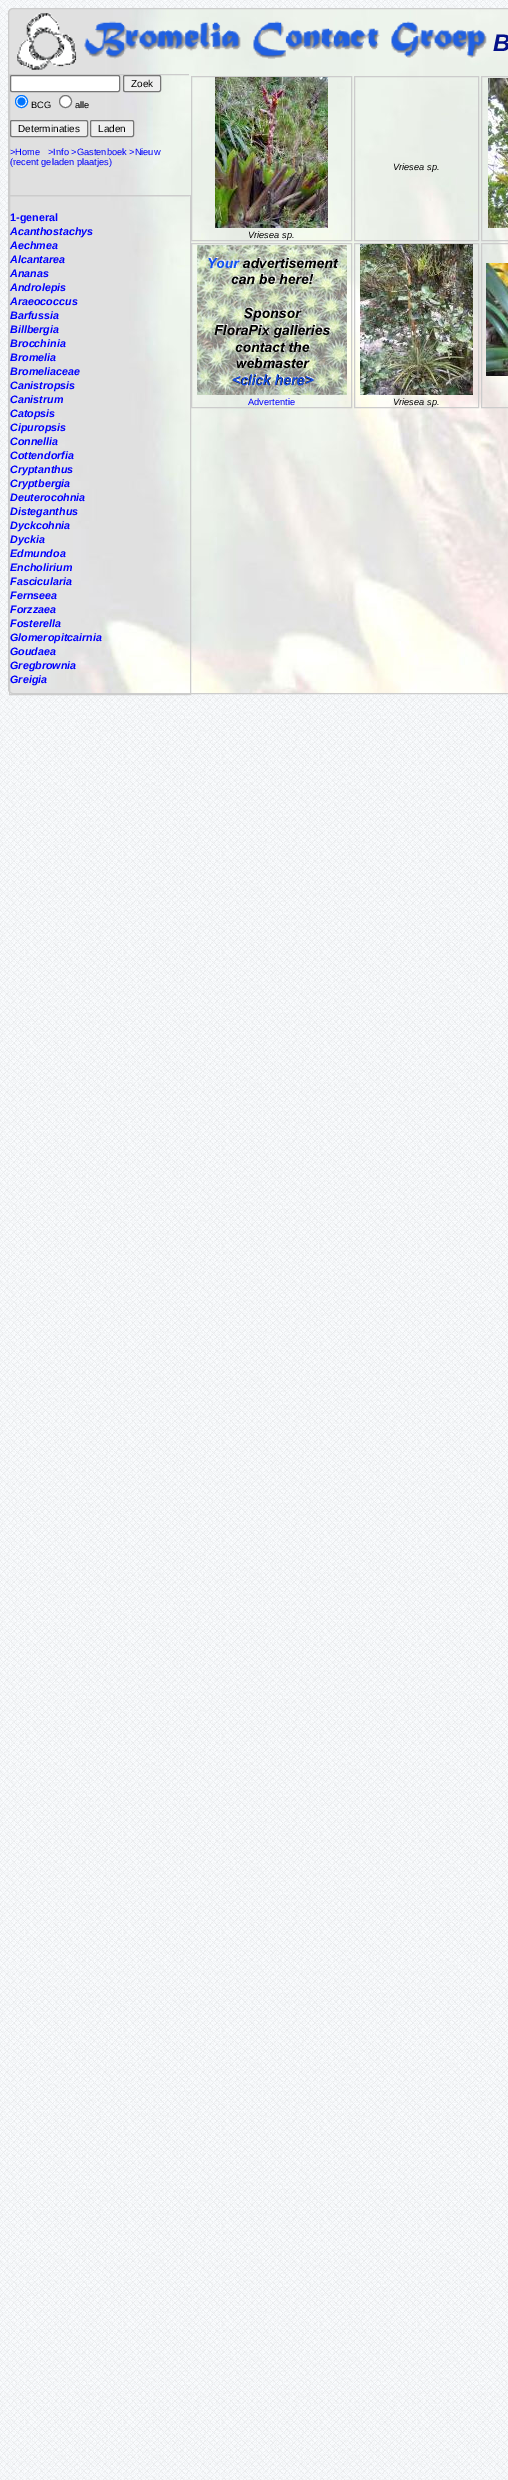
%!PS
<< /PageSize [508 2480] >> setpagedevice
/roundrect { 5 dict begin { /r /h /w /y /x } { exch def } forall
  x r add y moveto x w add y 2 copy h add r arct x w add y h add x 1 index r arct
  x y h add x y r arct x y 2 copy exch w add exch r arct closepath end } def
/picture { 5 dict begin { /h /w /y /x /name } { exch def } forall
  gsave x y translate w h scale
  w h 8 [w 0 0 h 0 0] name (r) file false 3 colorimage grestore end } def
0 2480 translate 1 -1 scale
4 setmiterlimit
1 setgray
0 0 508 2480 rectfill
(img1.rgb) 0 0 508 2480 picture
(img2.rgb) 8 8 500 686 picture
0.8 setgray
8.5 8.5 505 685 4.5 roundrect stroke
(img3.rgb) 17 13 470 57 picture
/LiberationSans-BoldItalic [24 0 0 -24 0 0] selectfont
0.016 0.067 0.533 setrgbcolor
493 51 moveto (B) show
gsave
9 74 180 619 rectclip
0.8 setgray
9.5 74.5 181 121 rectstroke
grestore
1 setgray
10.5 75.5 109 16 1.5 roundrect gsave fill grestore
0.463 setgray
stroke
0.937 setgray
123.5 75.5 37 16 1.5 roundrect gsave fill grestore
0.463 setgray
stroke
/LiberationSans-Regular [10 0 0 -10 0 0] selectfont
0 setgray
131 87 moveto (Zoek) show
1 setgray
newpath 21.5 101.5 6 0 360 arc closepath gsave fill grestore
0 0.459 1 setrgbcolor
stroke
newpath 21.5 101.5 4 0 360 arc closepath fill
/LiberationSans-Regular [9.25 0 0 -9.25 0 0] selectfont
0 setgray
31 108 moveto (BCG) show
1 setgray
newpath 65.5 101.5 6 0 360 arc closepath gsave fill grestore
0.463 setgray
stroke
0 setgray
75 108 moveto (alle) show
0.937 setgray
10.5 120.5 77 16 1.5 roundrect gsave fill grestore
0.463 setgray
stroke
/LiberationSans-Regular [10 0 0 -10 0 0] selectfont
0 setgray
18 132 moveto (Determinaties) show
0.937 setgray
90.5 120.5 43 16 1.5 roundrect gsave fill grestore
0.463 setgray
stroke
0 setgray
98 132 moveto (Laden) show
/LiberationSans-Regular [9.25 0 0 -9.25 0 0] selectfont
0 0 1 setrgbcolor
10 155 moveto (>Home) show
48 155 moveto (>Info >Gastenboek >Nieuw) show
10 165 moveto (\(recent geladen plaatjes\)) show
0.8 setgray
9.5 195.5 181 499 rectstroke
/LiberationSans-Bold [10.75 0 0 -10.75 0 0] selectfont
0 0 1 setrgbcolor
10 221 moveto (1-general) show
/LiberationSans-BoldItalic [10.75 0 0 -10.75 0 0] selectfont
10 235 moveto (Acanthostachys) show
10 249 moveto (Aechmea) show
10 263 moveto (Alcantarea) show
10 277 moveto (Ananas) show
10 291 moveto (Androlepis) show
10 305 moveto (Araeococcus) show
10 319 moveto (Barfussia) show
10 333 moveto (Billbergia) show
10 347 moveto (Brocchinia) show
10 361 moveto (Bromelia) show
10 375 moveto (Bromeliaceae) show
10 389 moveto (Canistropsis) show
10 403 moveto (Canistrum) show
10 417 moveto (Catopsis) show
10 431 moveto (Cipuropsis) show
10 445 moveto (Connellia) show
10 459 moveto (Cottendorfia) show
10 473 moveto (Cryptanthus) show
10 487 moveto (Cryptbergia) show
10 501 moveto (Deuterocohnia) show
10 515 moveto (Disteganthus) show
10 529 moveto (Dyckcohnia) show
10 543 moveto (Dyckia) show
10 557 moveto (Edmundoa) show
10 571 moveto (Encholirium) show
10 585 moveto (Fascicularia) show
10 599 moveto (Fernseea) show
10 613 moveto (Forzzaea) show
10 627 moveto (Fosterella) show
10 641 moveto (Glomeropitcairnia) show
10 655 moveto (Goudaea) show
10 669 moveto (Gregbrownia) show
10 683 moveto (Greigia) show
0.8 setgray
354.5 76.5 124 164 rectstroke
/LiberationSans-Italic [9.25 0 0 -9.25 0 0] selectfont
0 setgray
393 170 moveto (Vriesea sp.) show
0.8 setgray
481.5 76.5 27 164 rectstroke
(img4.rgb) 488 78 20 150 picture
191.5 76.5 160 164 rectstroke
(img5.rgb) 215 77 113 151 picture
0 setgray
248 238 moveto (Vriesea sp.) show
0.8 setgray
191.5 243.5 160 164 rectstroke
(img6.rgb) 197 245 150 150 picture
/LiberationSans-Regular [9.25 0 0 -9.25 0 0] selectfont
0 0 1 setrgbcolor
248 405 moveto (Advertentie) show
0.8 setgray
354.5 243.5 124 164 rectstroke
(img7.rgb) 360 244 113 151 picture
/LiberationSans-Italic [9.25 0 0 -9.25 0 0] selectfont
0 setgray
393 405 moveto (Vriesea sp.) show
0.8 setgray
481.5 243.5 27 164 rectstroke
(img8.rgb) 486 263 22 113 picture
showpage
